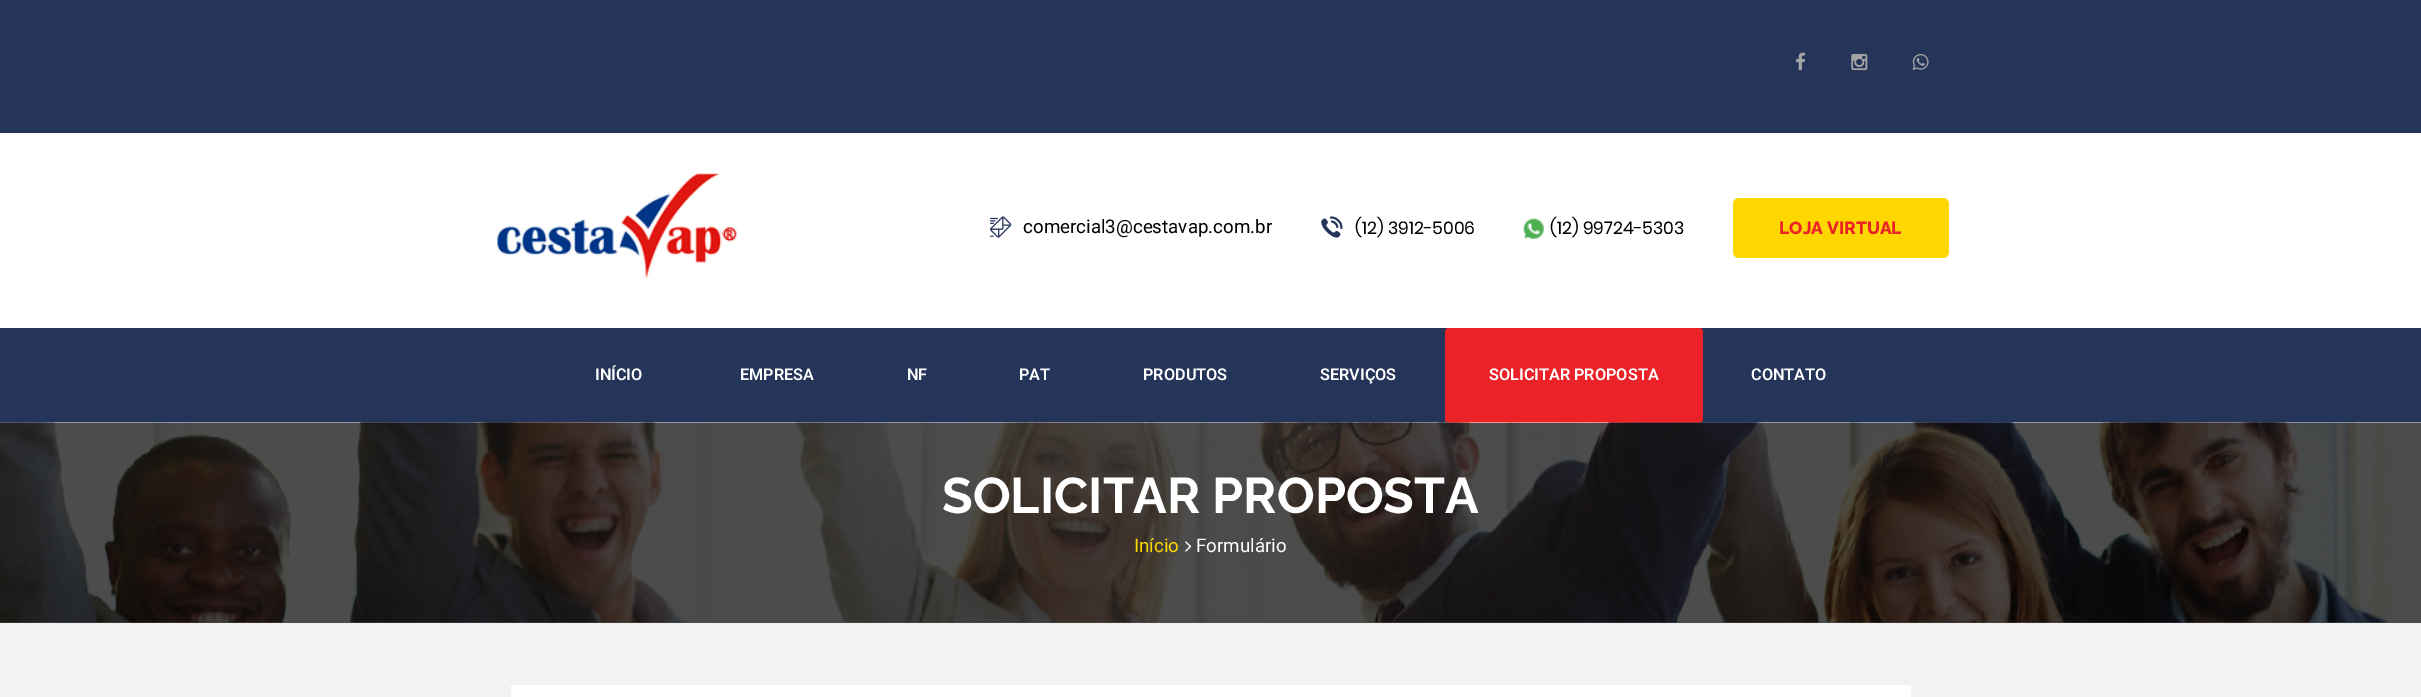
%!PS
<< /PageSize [2421 697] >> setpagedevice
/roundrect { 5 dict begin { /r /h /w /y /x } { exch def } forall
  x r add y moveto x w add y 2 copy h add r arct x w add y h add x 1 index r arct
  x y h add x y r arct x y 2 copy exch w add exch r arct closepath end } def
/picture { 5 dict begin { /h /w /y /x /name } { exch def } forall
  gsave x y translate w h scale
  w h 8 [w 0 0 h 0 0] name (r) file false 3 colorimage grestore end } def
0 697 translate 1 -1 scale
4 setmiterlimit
1 setgray
0 0 2421 697 rectfill
0.302 setgray
0 622 2421 1 rectfill
0.141 0.208 0.349 setrgbcolor
0 0 2421 133 rectfill
(img1.rgb) 1796 52 10 19 picture
(img2.rgb) 1851 54 17 17 picture
(img3.rgb) 1912 54 17 17 picture
(img4.rgb) 495 173 242 106 picture
(img5.rgb) 990 216 22 22 picture
/Roboto-Regular [18.75 0 0 -18.75 0 0] selectfont
0 setgray
1023 233 moveto (comercial3@cestavap.com.br) show
(img6.rgb) 1321 216 22 22 picture
/Poppins-Regular [17.5 0 0 -17.5 0 0] selectfont
1355 234 moveto (\(12\) 3912-5006) show
(img7.rgb) 1523 218 21 21 picture
1550 234 moveto (\(12\) 99724-5303) show
1 0.843 0 setrgbcolor
1733 198 216 60 6 roundrect fill
/Raleway-ExtraBold [17.5 0 0 -17.5 0 0] selectfont
0.922 0.133 0.153 setrgbcolor
1779 234 moveto (LOJA VIRTUAL) show
0.141 0.208 0.349 setrgbcolor
0 328 2421 95 rectfill
/Roboto-SemiBold [16.25 0 0 -16.25 0 0] selectfont
1 setgray
595 380 moveto (INÍCIO) show
740 380 moveto (EMPRESA) show
907 380 moveto (NF) show
1019 380 moveto (PAT) show
1143 380 moveto (PRODUTOS) show
1320 380 moveto (SERVIÇOS) show
0.922 0.133 0.153 setrgbcolor
1445 328 258 95 4 roundrect fill
1 setgray
1489 380 moveto (SOLICITAR PROPOSTA) show
1751 380 moveto (CONTATO) show
(img8.rgb) 0 422 2421 201 picture
/Raleway-Bold [50 0 0 -50 0 0] selectfont
942 513 moveto (SOLICITAR PROPOSTA) show
/Roboto-Regular [18.75 0 0 -18.75 0 0] selectfont
0.988 0.843 0 setrgbcolor
1134 552 moveto (Início) show
(img9.rgb) 1185 541 7 11 picture
1 setgray
1196 552 moveto (Formulário) show
0.949 setgray
0 623 2421 74 rectfill
1 setgray
511 685 1400 12 rectfill
showpage
